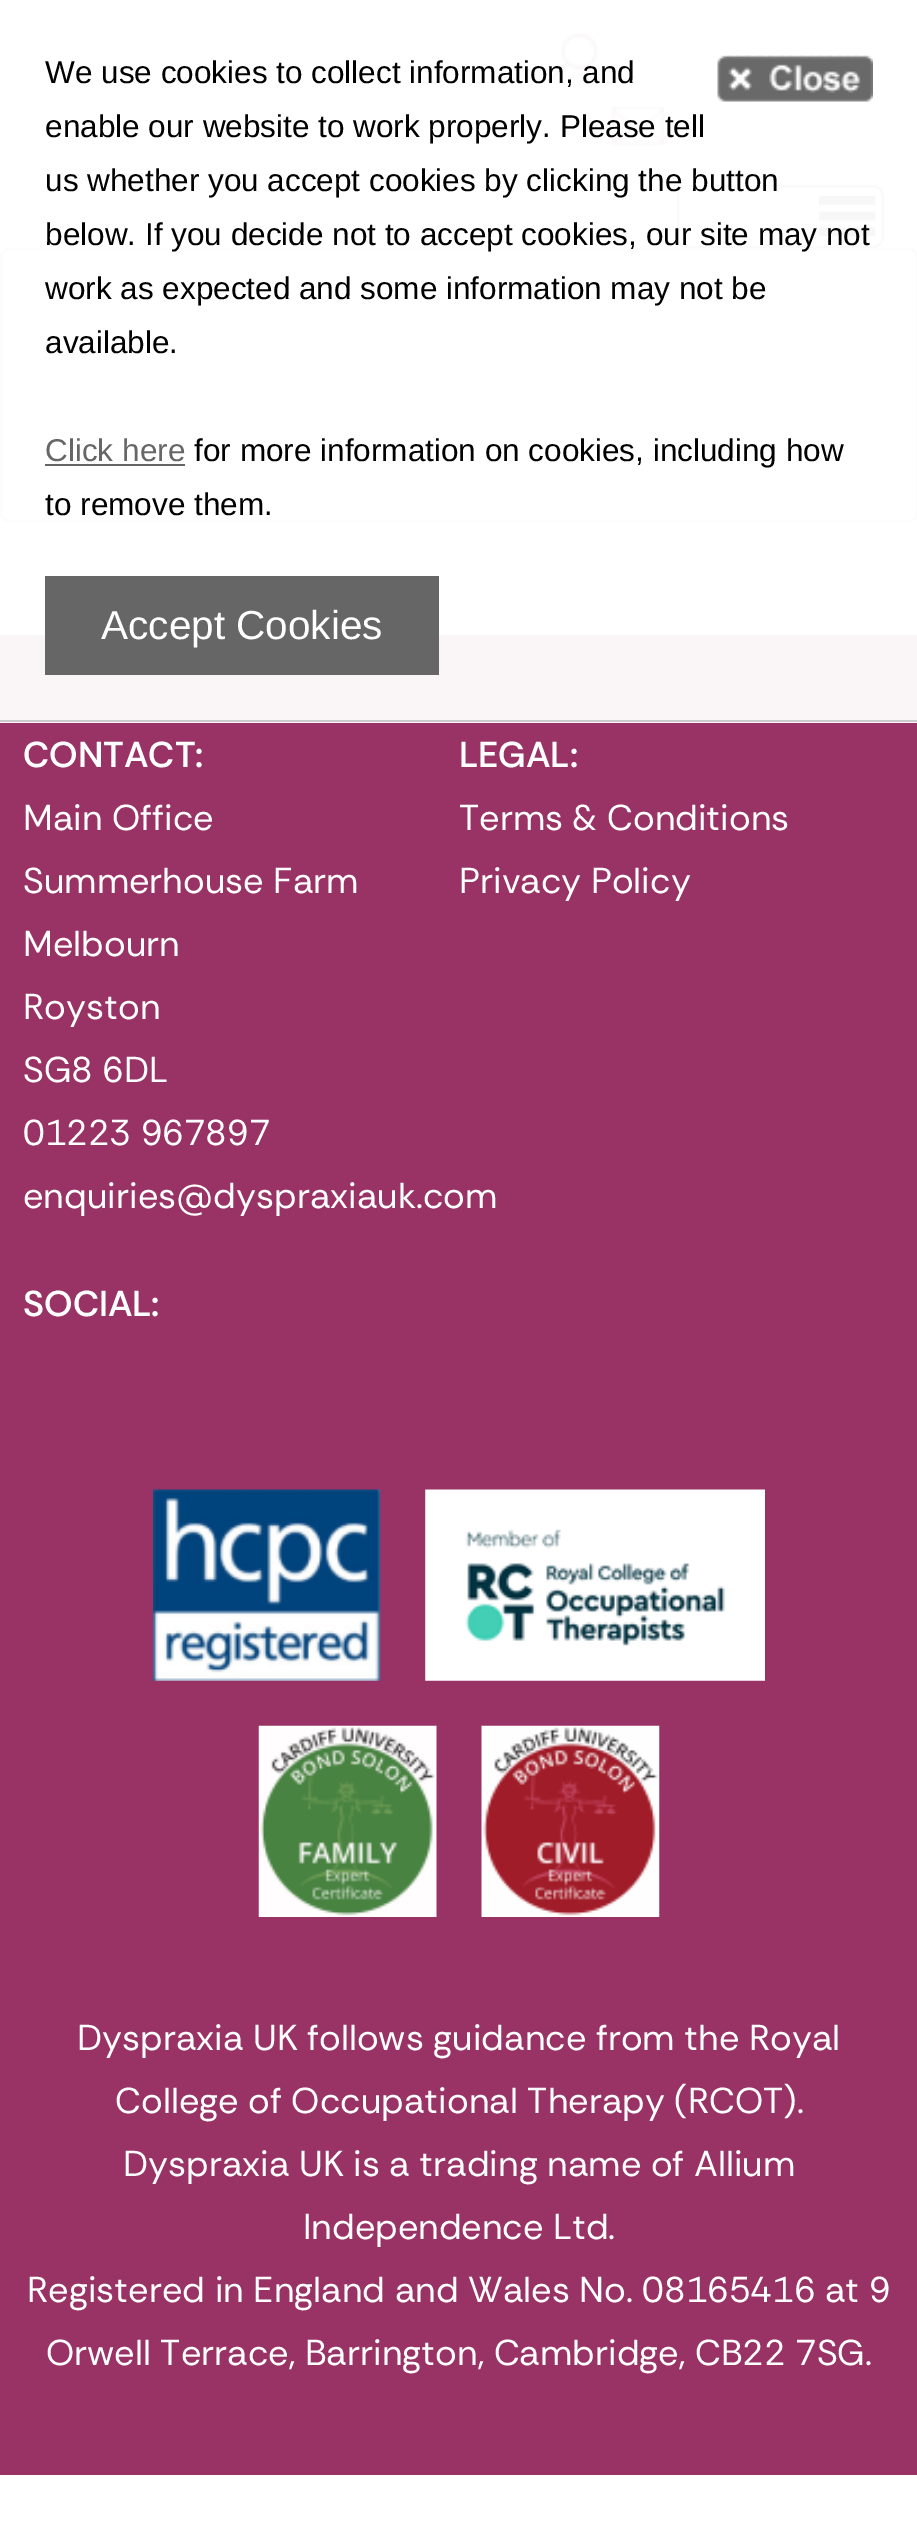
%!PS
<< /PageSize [917 2535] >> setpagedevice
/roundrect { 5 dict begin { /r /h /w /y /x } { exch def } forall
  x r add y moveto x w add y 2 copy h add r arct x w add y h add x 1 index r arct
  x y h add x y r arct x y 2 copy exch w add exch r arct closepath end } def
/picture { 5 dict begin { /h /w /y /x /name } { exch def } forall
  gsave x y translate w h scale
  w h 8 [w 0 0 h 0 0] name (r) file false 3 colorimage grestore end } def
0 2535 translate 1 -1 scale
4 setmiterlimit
1 setgray
0 0 917 2535 rectfill
(img1.rgb) 546 33 53 48 picture
(img2.rgb) 611 106 53 40 picture
0.98 setgray
2 setlinewidth
678 186 205 61 10 roundrect stroke
(img3.rgb) 819 195 57 42 picture
0.98 0.961 0.969 setrgbcolor
0 635 917 88 rectfill
0.8 setgray
0 720 917 2 rectfill
(img4.rgb) 717 55 156 47 picture
/LiberationSans-Regular [31.5 0 0 -31.5 0 0] selectfont
0 setgray
45 83 moveto (We use cookies to collect information, and) show
45 137 moveto (enable our website to work properly. Please tell) show
45 191 moveto (us whether you accept cookies by clicking the button) show
0.988 setgray
1 249 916 272 8 roundrect stroke
0 setgray
45 245 moveto (below. If you decide not to accept cookies, our site may not) show
45 299 moveto (work as expected and some information may not be) show
45 353 moveto (available.) show
0.4 setgray
45 461 moveto (Click here) show
45 464 140 2 rectfill
0 setgray
194 461 moveto (for more information on cookies, including how) show
45 515 moveto (to remove them.) show
0.4 setgray
45 576 394 99 rectfill
/LiberationSans-Regular [40.5 0 0 -40.5 0 0] selectfont
1 setgray
101 639 moveto (Accept Cookies) show
0.6 0.2 0.4 setrgbcolor
0 723 917 1752 rectfill
/RethinkSans-Thin [36 0 0 -36 0 0] selectfont
1 setgray
23 767 moveto (CONTACT:) show
/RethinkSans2-Thin [36 0 0 -36 0 0] selectfont
23 830 moveto (Main Office) show
23 893 moveto (Summerhouse Farm) show
23 956 moveto (Melbourn) show
23 1019 moveto (Royston) show
23 1082 moveto (SG8 6DL) show
23 1145 moveto (01223 967897) show
23 1208 moveto (enquiries@dyspraxiauk.com) show
/RethinkSans-Thin [36 0 0 -36 0 0] selectfont
459 767 moveto (LEGAL:) show
/RethinkSans2-Thin [36 0 0 -36 0 0] selectfont
459 830 moveto (Terms & Conditions) show
459 893 moveto (Privacy Policy) show
/RethinkSans-Thin [36 0 0 -36 0 0] selectfont
23 1316 moveto (SOCIAL:) show
(img5.rgb) 153 1489 228 192 picture
(img6.rgb) 425 1489 340 192 picture
(img7.rgb) 258 1725 179 192 picture
(img8.rgb) 481 1725 179 192 picture
/RethinkSans2-Thin [36 0 0 -36 0 0] selectfont
77 2050 moveto (Dyspraxia UK follows guidance from the Royal) show
115 2113 moveto (College of Occupational Therapy \(RCOT\).) show
123 2176 moveto (Dyspraxia UK is a trading name of Allium) show
303 2239 moveto (Independence Ltd.) show
27 2302 moveto (Registered in England and Wales No. 08165416 at 9) show
46 2365 moveto (Orwell Terrace, Barrington, Cambridge, CB22 7SG.) show
showpage
